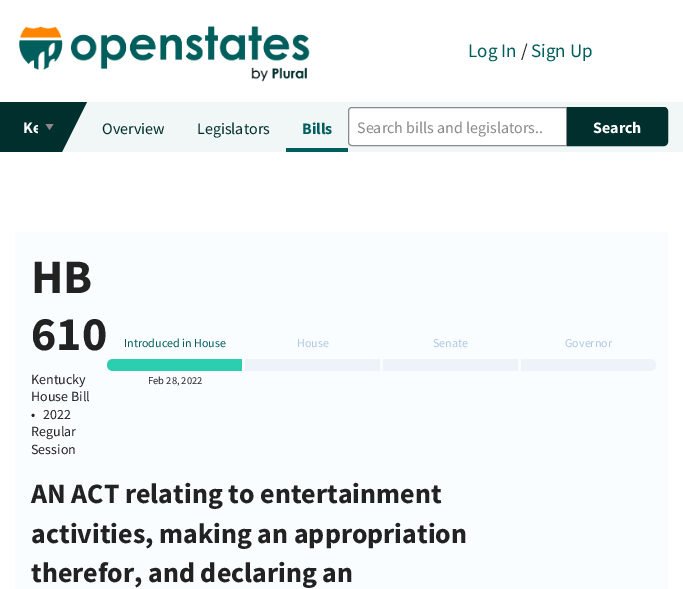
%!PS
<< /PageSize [683 589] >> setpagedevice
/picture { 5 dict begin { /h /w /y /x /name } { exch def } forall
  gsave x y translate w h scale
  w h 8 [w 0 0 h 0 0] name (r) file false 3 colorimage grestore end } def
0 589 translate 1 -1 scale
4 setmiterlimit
1 setgray
0 0 683 589 rectfill
(img1.rgb) 19 26 291 56 picture
/SourceSansPro-Regular [19 0 0 -19 0 0] selectfont
0 0.369 0.361 setrgbcolor
468 57 moveto (Log In) show
0.133 setgray
521 57 moveto (/) show
0 0.369 0.361 setrgbcolor
531 57 moveto (Sign Up) show
0 0.184 0.18 setrgbcolor
0 102 62 50 rectfill
0.945 0.965 0.965 setrgbcolor
62 102 621 50 rectfill
0.541 setgray
newpath 45.5 124 moveto 53.5 124 lineto 49.5 130 lineto closepath fill
gsave
23 115 15 24 rectclip
/SourceSansPro-Bold [16 0 0 -16 0 0] selectfont
1 setgray
23 133 moveto (Ke) show
grestore
0 0.184 0.18 setrgbcolor
newpath 62 152 moveto 62 102 lineto 87 102 lineto closepath fill
/SourceSansPro-Regular [16 0 0 -16 0 0] selectfont
102 134 moveto (Overview) show
197 134 moveto (Legislators) show
0 0.369 0.361 setrgbcolor
286 148 62 4 rectfill
/SourceSansPro-Bold [16 0 0 -16 0 0] selectfont
302 134 moveto (Bills) show
1 setgray
newpath 352 107.5 moveto 566.5 107.5 lineto 566.5 145.5 lineto 352 145.5 lineto 350 145.5 348.5 144 348.5 142 curveto 348.5 111 lineto 348.5 109 350 107.5 352 107.5 curveto closepath gsave fill grestore
0.541 setgray
stroke
/SourceSansPro-Regular [16 0 0 -16 0 0] selectfont
357 133 moveto (Search bills and legislators..) show
0 0.184 0.18 setrgbcolor
newpath 568 108 moveto 664 108 lineto 665.5 108 667 109.5 667 111 curveto 667 142 lineto 667 143.5 665.5 145 664 145 curveto 568 145 lineto closepath gsave fill grestore
2 setlinewidth
stroke
/SourceSansPro-Bold [16 0 0 -16 0 0] selectfont
1 setgray
593 133 moveto (Search) show
0.976 0.992 1 setrgbcolor
15 232 653 357 rectfill
/SourceSansPro-Bold [48 0 0 -48 0 0] selectfont
0.133 setgray
31 293 moveto (HB) show
31 350 moveto (610) show
/SourceSansPro-Regular [14 0 0 -14 0 0] selectfont
31 384 moveto (Kentucky) show
31 401 moveto (House Bill) show
31 419 moveto (•) show
43 419 moveto (2022) show
31 436 moveto (Regular) show
31 454 moveto (Session) show
0.173 0.808 0.69 setrgbcolor
newpath 113 359 moveto 242 359 lineto 242 371 lineto 113 371 lineto 109.5 371 107 368.5 107 365 curveto 107 361.5 109.5 359 113 359 curveto closepath fill
/SourceSansPro-Regular [12 0 0 -12 0 0] selectfont
0 0.369 0.361 setrgbcolor
124 347 moveto (Introduced in House) show
/SourceSansPro-Regular [10.5 0 0 -10.5 0 0] selectfont
0.133 setgray
148 384 moveto (Feb 28, 2022) show
0.929 0.953 0.973 setrgbcolor
245 359 135 12 rectfill
/SourceSansPro-Regular [12 0 0 -12 0 0] selectfont
0.686 0.78 0.878 setrgbcolor
297 347 moveto (House) show
0.929 0.953 0.973 setrgbcolor
383 359 135 12 rectfill
0.686 0.78 0.878 setrgbcolor
433 347 moveto (Senate) show
0.929 0.953 0.973 setrgbcolor
newpath 521 359 moveto 650 359 lineto 653.5 359 656 361.5 656 365 curveto 656 368.5 653.5 371 650 371 curveto 521 371 lineto closepath fill
0.686 0.78 0.878 setrgbcolor
565 347 moveto (Governor) show
/SourceSansPro-Bold [28 0 0 -28 0 0] selectfont
0.133 setgray
31 503 moveto (AN ACT relating to entertainment) show
31 543 moveto (activities, making an appropriation) show
31 582 moveto (therefor, and declaring an) show
showpage
